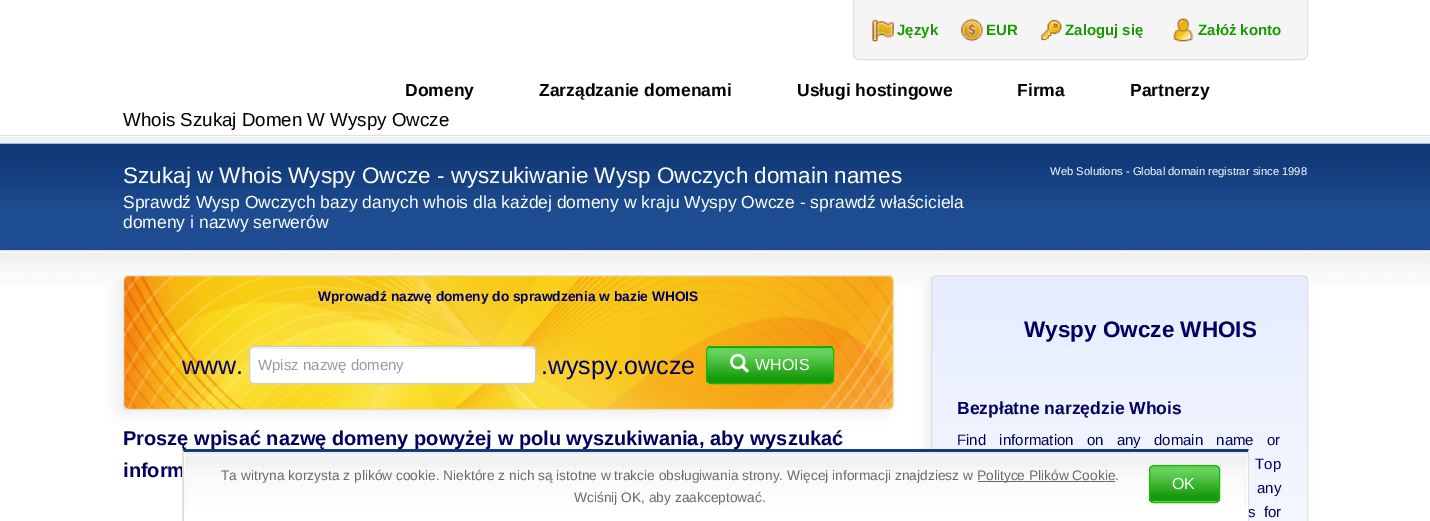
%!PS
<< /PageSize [1430 521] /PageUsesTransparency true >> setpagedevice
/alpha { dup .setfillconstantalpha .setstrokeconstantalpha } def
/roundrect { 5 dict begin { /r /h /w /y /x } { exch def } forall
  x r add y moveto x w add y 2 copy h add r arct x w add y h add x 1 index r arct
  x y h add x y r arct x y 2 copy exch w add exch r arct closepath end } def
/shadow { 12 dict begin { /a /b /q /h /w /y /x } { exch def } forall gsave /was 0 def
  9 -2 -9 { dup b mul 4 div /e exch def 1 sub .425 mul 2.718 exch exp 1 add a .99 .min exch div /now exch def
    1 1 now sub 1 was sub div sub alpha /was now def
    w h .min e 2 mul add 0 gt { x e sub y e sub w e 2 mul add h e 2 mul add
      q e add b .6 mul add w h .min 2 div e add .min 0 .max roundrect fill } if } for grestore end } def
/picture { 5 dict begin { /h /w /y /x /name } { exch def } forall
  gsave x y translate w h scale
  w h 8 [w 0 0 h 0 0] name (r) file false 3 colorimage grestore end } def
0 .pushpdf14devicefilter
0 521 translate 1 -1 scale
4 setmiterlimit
1 setgray
0 0 1430 521 rectfill
0.961 setgray
newpath 853.5 -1.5 moveto 1307.5 -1.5 lineto 1307.5 54 lineto 1307.5 57 1305 59.5 1302 59.5 curveto 859 59.5 lineto 856 59.5 853.5 57 853.5 54 curveto closepath gsave fill grestore
0.871 setgray
stroke
(img1.rgb) 872 19 22 23 picture
/LiberationSans-Bold [15 0 0 -15 0 0] selectfont
0.086 0.604 0 setrgbcolor
897 35 moveto (Język) show
(img2.rgb) 961 18 22 24 picture
986 35 moveto (EUR) show
(img3.rgb) 1041 19 21 22 picture
1065 35 moveto (Zaloguj się) show
(img4.rgb) 1173 18 20 24 picture
1198 35 moveto (Załóż konto) show
/LiberationSans-Bold [17.5 0 0 -17.5 0 0] selectfont
0 setgray
405 96 moveto (Domeny) show
539 96 moveto (Zarządzanie domenami) show
797 96 moveto (Usługi hostingowe) show
1017 96 moveto (Firma) show
1130 96 moveto (Partnerzy) show
/LiberationSans-Regular [18.75 0 0 -18.75 0 0] selectfont
123 126 moveto (Whois Szukaj Domen W Wyspy Owcze) show
(img5.rgb) 0 135 1430 115 picture
/LiberationSans-Regular [22.5 0 0 -22.5 0 0] selectfont
1 setgray
123 183 moveto (Szukaj w Whois Wyspy Owcze - wyszukiwanie Wysp Owczych domain names) show
/LiberationSans-Regular [17.5 0 0 -17.5 0 0] selectfont
123 208 moveto (Sprawdź Wysp Owczych bazy danych whois dla każdej domeny w kraju Wyspy Owcze - sprawdź właściciela) show
123 228 moveto (domeny i nazwy serwerów) show
/LiberationSans-Regular [11.25 0 0 -11.25 0 0] selectfont
1050 175 moveto (Web Solutions - Global domain registrar since 1998) show
(img6.rgb) 0 250 1430 36 picture
0.937 setgray
116 280 772 135 6 6 1 shadow
1 0.843 0 setrgbcolor
123 275 771 135 6 roundrect fill
(img7.rgb) 123 276 770 133 picture
0.878 setgray
123.5 275.5 770 134 5.5 roundrect stroke
/LiberationSans-Bold [13.75 0 0 -13.75 0 0] selectfont
0 0 0.376 setrgbcolor
318 301 moveto (Wprowadź nazwę domeny do sprawdzenia w bazie WHOIS) show
/LiberationSans-Regular [25 0 0 -25 0 0] selectfont
182 374 moveto (www.) show
1 setgray
249 346 287 38 5 roundrect fill
0.925 setgray
newpath 254 349 moveto 531 349 lineto 533 349 535 350 535 352 curveto 535 350 533 348 531 348 curveto 254 348 lineto 252 348 250 350 250 352 curveto 250 350 252 349 254 349 curveto closepath fill
0.8 setgray
249.5 346.5 286 37 4.5 roundrect stroke
/LiberationSans-Regular [15 0 0 -15 0 0] selectfont
0.6 setgray
258 370 moveto (Wpisz nazwę domeny) show
/LiberationSans-Regular [25 0 0 -25 0 0] selectfont
0 0 0.376 setrgbcolor
541 374 moveto (.wyspy.owcze) show
gsave
706 346 128 38 5 roundrect clip newpath
gsave newpath 706 346 moveto 834 346 lineto 834 348 lineto 706 348 lineto closepath clip newpath
<< /ShadingType 2 /ColorSpace /DeviceRGB /Coords [708 313 708 348] /Extend [true true] /Function << /FunctionType 3 /Domain [0 1] /Functions [<< /FunctionType 2 /Domain [0 1] /C0 [0.396 0.824 0.357] /C1 [0.396 0.824 0.357] /N 1 >> << /FunctionType 2 /Domain [0 1] /C0 [0.396 0.824 0.357] /C1 [0.082 0.596 0.035] /N 1 >> << /FunctionType 2 /Domain [0 1] /C0 [0.082 0.596 0.035] /C1 [0.082 0.596 0.035] /N 1 >>] /Bounds [0.16 0.89] /Encode [0 1 0 1 0 1] >> >> shfill grestore
gsave newpath 706 348 moveto 834 348 lineto 834 383 lineto 706 383 lineto closepath clip newpath
<< /ShadingType 2 /ColorSpace /DeviceRGB /Coords [708 348 708 383] /Extend [true true] /Function << /FunctionType 3 /Domain [0 1] /Functions [<< /FunctionType 2 /Domain [0 1] /C0 [0.396 0.824 0.357] /C1 [0.396 0.824 0.357] /N 1 >> << /FunctionType 2 /Domain [0 1] /C0 [0.396 0.824 0.357] /C1 [0.082 0.596 0.035] /N 1 >> << /FunctionType 2 /Domain [0 1] /C0 [0.082 0.596 0.035] /C1 [0.082 0.596 0.035] /N 1 >>] /Bounds [0.16 0.89] /Encode [0 1 0 1 0 1] >> >> shfill grestore
grestore
0.075 0.729 0 setrgbcolor
706.5 346.5 127 37 4.5 roundrect stroke
(img8.rgb) 730 353 19 20 picture
/LiberationSans-Regular [16 0 0 -16 0 0] selectfont
1 setgray
755 370 moveto (WHOIS) show
/LiberationSans-Bold [20 0 0 -20 0 0] selectfont
0 0 0.376 setrgbcolor
123 445 moveto (Proszę wpisać nazwę domeny powyżej w polu wyszukiwania, aby wyszukać) show
123 477 moveto (inform) show
0.937 setgray
925 280 376 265 6 6 1 shadow
gsave
931 275 377 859 6 roundrect clip newpath
gsave newpath 931 276 moveto 1308 276 lineto 1308 521 lineto 931 521 lineto closepath clip newpath
<< /ShadingType 2 /ColorSpace /DeviceRGB /Coords [1119 276 1119 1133] /Extend [true true] /Function << /FunctionType 3 /Domain [0 1] /Functions [<< /FunctionType 2 /Domain [0 1] /C0 [0.902 0.929 0.996] /C1 [1 1 1] /N 1 >> << /FunctionType 2 /Domain [0 1] /C0 [1 1 1] /C1 [0.902 0.929 0.996] /N 1 >>] /Bounds [0.5] /Encode [0 1 0 1] >> >> shfill grestore
grestore
0.878 setgray
931.5 275.5 376 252 5.5 roundrect stroke
/LiberationSans-Bold [22.5 0 0 -22.5 0 0] selectfont
0 0 0.376 setrgbcolor
1024 337 moveto (Wyspy Owcze WHOIS) show
/LiberationSans-Bold [17.5 0 0 -17.5 0 0] selectfont
957 414 moveto (Bezpłatne narzędzie Whois) show
/LiberationSans-Regular [15 0 0 -15 0 0] selectfont
957 445 moveto 9 0 32 (Find information on any domain name or) widthshow
1255 469 moveto 4 0 32 (Top) widthshow
1257 493 moveto 8 0 32 (any) widthshow
1248 517 moveto 4 0 32 (s for) widthshow
(img9.rgb) 184 452 1064 69 picture
0.067 0.239 0.502 setrgbcolor
newpath 182 449 moveto 1249 449 lineto 1248 452 lineto 184 452 lineto closepath fill
0.871 setgray
newpath 1249 449 moveto 1249 521 lineto 1248 521 lineto 1248 452 lineto closepath fill
newpath 182 521 moveto 182 449 lineto 184 452 lineto 184 521 lineto closepath fill
1 setgray
1246 453 1 46 rectfill
184 453 1 46 rectfill
0.945 setgray
1245 465 1 44 rectfill
185 465 1 44 rectfill
/LiberationSans-Regular [13.75 0 0 -13.75 0 0] selectfont
0.412 setgray
221 480 moveto (Ta witryna korzysta z plików cookie. Niektóre z nich są istotne w trakcie obsługiwania strony. Więcej informacji znajdziesz w) show
978 481 137 1 rectfill
977 480 moveto (Polityce Plików Cookie.) show
574 502 moveto (Wciśnij OK, aby zaakceptować.) show
gsave
1149 465 71 38 5 roundrect clip newpath
gsave newpath 1149 466 moveto 1220 466 lineto 1220 501 lineto 1149 501 lineto closepath clip newpath
<< /ShadingType 2 /ColorSpace /DeviceRGB /Coords [1150 466 1150 501] /Extend [true true] /Function << /FunctionType 3 /Domain [0 1] /Functions [<< /FunctionType 2 /Domain [0 1] /C0 [0.396 0.824 0.357] /C1 [0.396 0.824 0.357] /N 1 >> << /FunctionType 2 /Domain [0 1] /C0 [0.396 0.824 0.357] /C1 [0.082 0.596 0.035] /N 1 >> << /FunctionType 2 /Domain [0 1] /C0 [0.082 0.596 0.035] /C1 [0.082 0.596 0.035] /N 1 >>] /Bounds [0.16 0.89] /Encode [0 1 0 1 0 1] >> >> shfill grestore
gsave newpath 1149 501 moveto 1220 501 lineto 1220 503 lineto 1149 503 lineto closepath clip newpath
<< /ShadingType 2 /ColorSpace /DeviceRGB /Coords [1150 501 1150 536] /Extend [true true] /Function << /FunctionType 3 /Domain [0 1] /Functions [<< /FunctionType 2 /Domain [0 1] /C0 [0.396 0.824 0.357] /C1 [0.396 0.824 0.357] /N 1 >> << /FunctionType 2 /Domain [0 1] /C0 [0.396 0.824 0.357] /C1 [0.082 0.596 0.035] /N 1 >> << /FunctionType 2 /Domain [0 1] /C0 [0.082 0.596 0.035] /C1 [0.082 0.596 0.035] /N 1 >>] /Bounds [0.16 0.89] /Encode [0 1 0 1 0 1] >> >> shfill grestore
grestore
0.075 0.729 0 setrgbcolor
1149.5 465.5 70 37 4.5 roundrect stroke
/LiberationSans-Regular [16 0 0 -16 0 0] selectfont
1 setgray
1172 489 moveto (OK) show
.poppdf14devicefilter showpage
